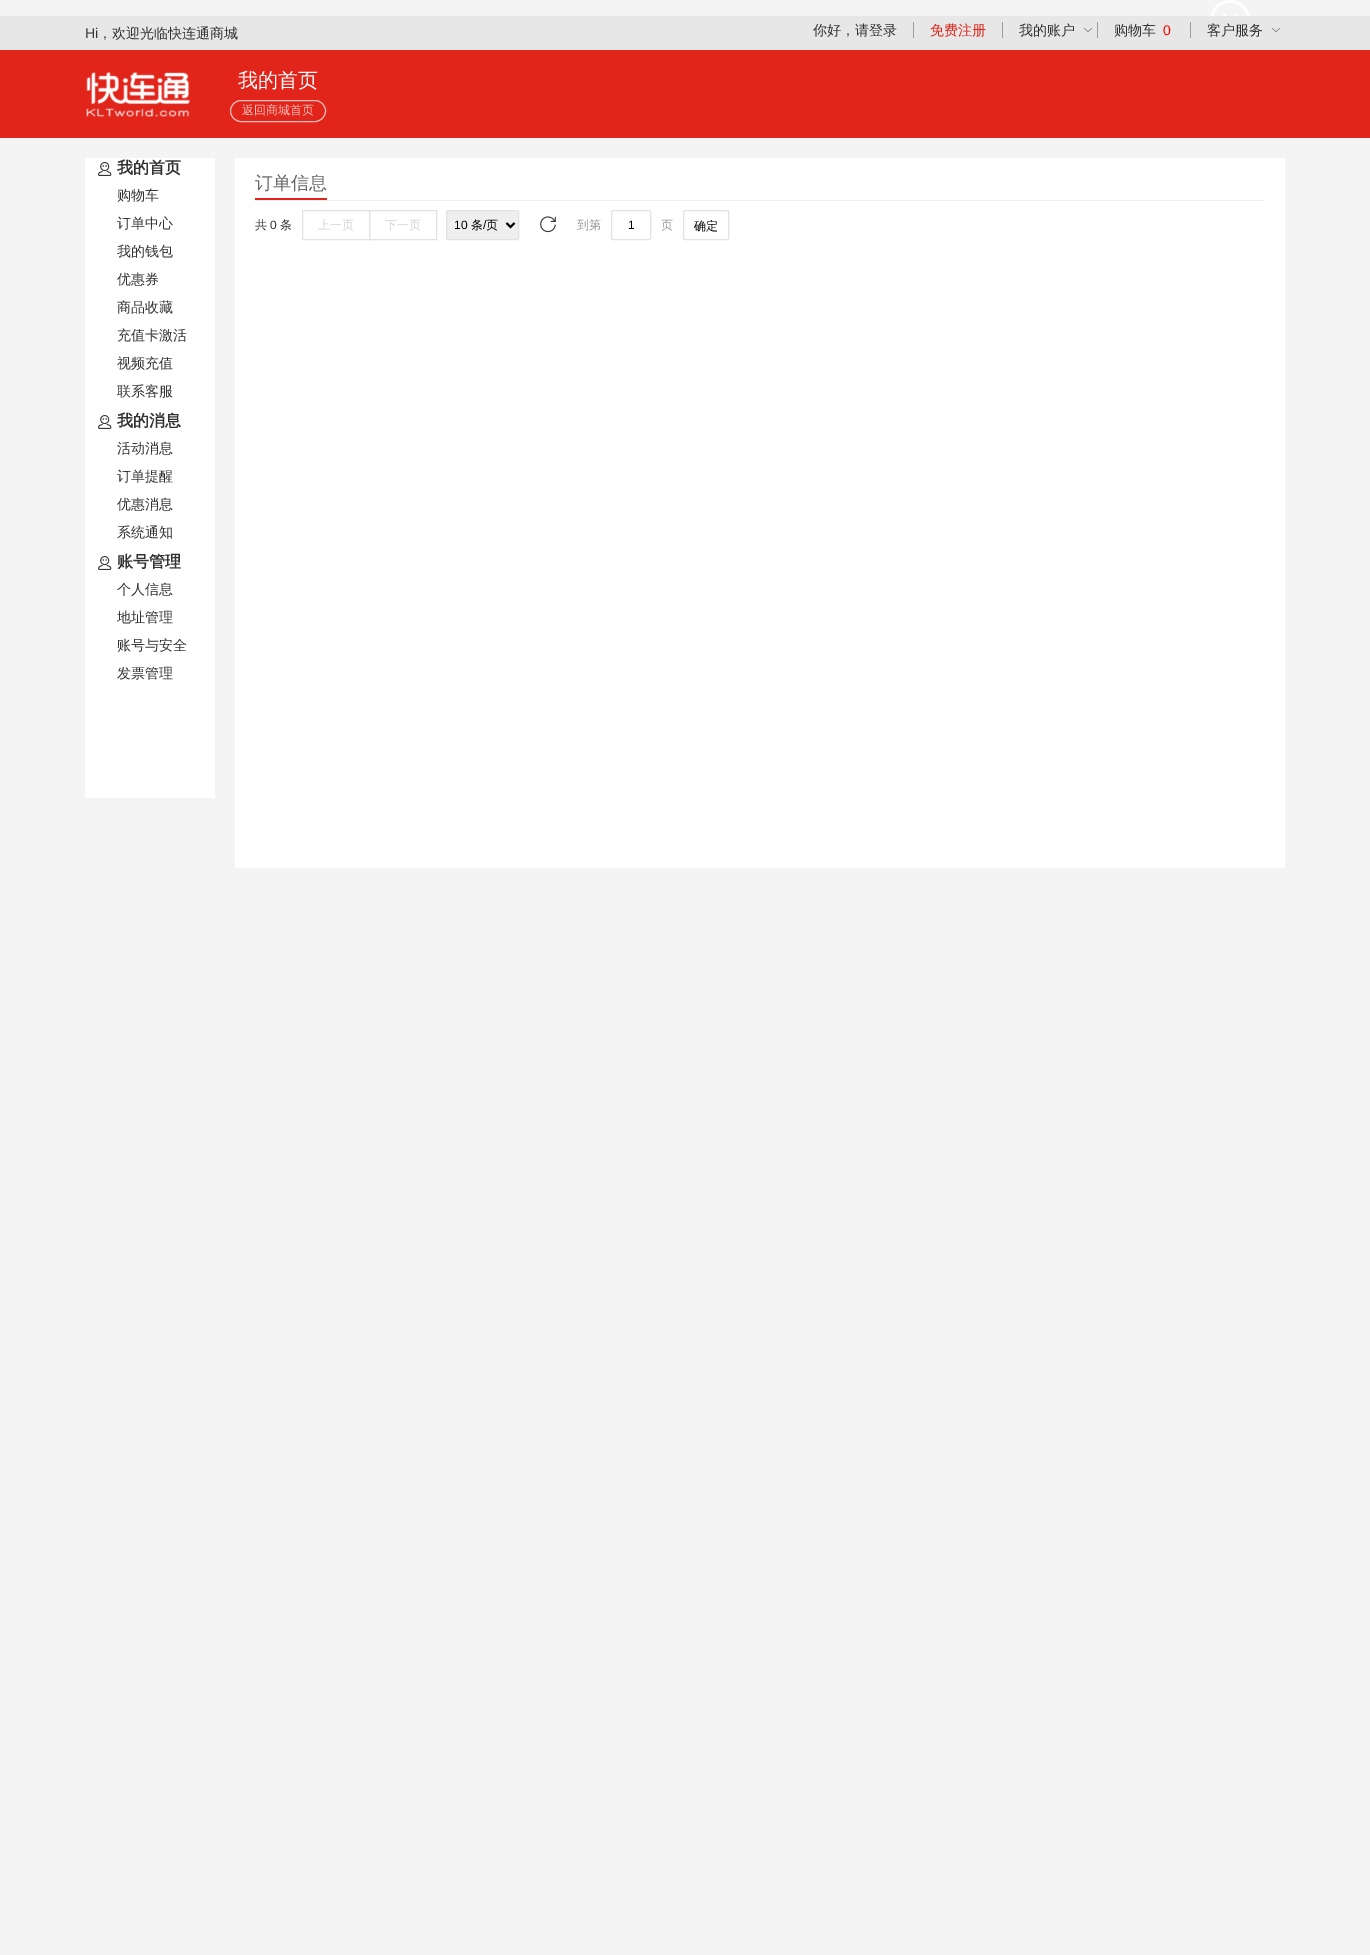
%!PS
<< /PageSize [1370 1955] >> setpagedevice
/roundrect { 5 dict begin { /r /h /w /y /x } { exch def } forall
  x r add y moveto x w add y 2 copy h add r arct x w add y h add x 1 index r arct
  x y h add x y r arct x y 2 copy exch w add exch r arct closepath end } def
/picture { 5 dict begin { /h /w /y /x /name } { exch def } forall
  gsave x y translate w h scale
  w h 8 [w 0 0 h 0 0] name (r) file false 3 colorimage grestore end } def
0 1955 translate 1 -1 scale
4 setmiterlimit
0.957 setgray
0 0 1370 1955 rectfill
(img1.rgb) 1210 0 40 16 picture
0.906 setgray
0 16 1370 34 rectfill
/LiberationSans-Regular [14 0 0 -14 0 0] selectfont
0.2 setgray
85 38 moveto (Hi) show
/WenQuanYiZenHei-Medium [14 0 0 -14 0 0] selectfont
98 38 moveto (，欢迎光临快连通商城) show
0.608 setgray
913 22 1 16 rectfill
0.2 setgray
813 35 moveto (你好，请登录) show
0.608 setgray
1002 22 1 16 rectfill
0.882 0.145 0.106 setrgbcolor
930 35 moveto (免费注册) show
(img2.rgb) 1084 28 8 4 picture
0.608 setgray
1097 22 1 16 rectfill
0.2 setgray
1019 35 moveto (我的账户) show
0.608 setgray
1190 22 1 16 rectfill
0.2 setgray
1114 35 moveto (购物车) show
/LiberationSans-Regular [14 0 0 -14 0 0] selectfont
1 0 0 setrgbcolor
1163 35 moveto (0) show
(img2.rgb) 1272 28 8 4 picture
/WenQuanYiZenHei-Medium [14 0 0 -14 0 0] selectfont
0.2 setgray
1207 35 moveto (客户服务) show
0.882 0.145 0.106 setrgbcolor
0 50 1370 88 rectfill
(img3.rgb) 86 72 104 45 picture
/WenQuanYiZenHei-Medium [20 0 0 -20 0 0] selectfont
1 setgray
238 87 moveto (我的首页) show
0.965 0.745 0.733 setrgbcolor
230.5 100.5 95 21 10.5 roundrect stroke
/WenQuanYiZenHei-Medium [12 0 0 -12 0 0] selectfont
242 114 moveto (返回商城首页) show
1 setgray
85 158 130 640 rectfill
(img4.rgb) 98 162 14 14 picture
/WenQuanYiZenHei-Bold [16 0 0 -16 0 0] selectfont
0.2 setgray
117 173 moveto (我的首页) show
/WenQuanYiZenHei-Medium [14 0 0 -14 0 0] selectfont
117 200 moveto (购物车) show
117 228 moveto (订单中心) show
117 256 moveto (我的钱包) show
117 284 moveto (优惠券) show
117 312 moveto (商品收藏) show
117 340 moveto (充值卡激活) show
117 368 moveto (视频充值) show
117 396 moveto (联系客服) show
(img4.rgb) 98 415 14 14 picture
/WenQuanYiZenHei-Bold [16 0 0 -16 0 0] selectfont
117 426 moveto (我的消息) show
/WenQuanYiZenHei-Medium [14 0 0 -14 0 0] selectfont
117 453 moveto (活动消息) show
117 481 moveto (订单提醒) show
117 509 moveto (优惠消息) show
117 537 moveto (系统通知) show
(img4.rgb) 98 556 14 14 picture
/WenQuanYiZenHei-Bold [16 0 0 -16 0 0] selectfont
117 567 moveto (账号管理) show
/WenQuanYiZenHei-Medium [14 0 0 -14 0 0] selectfont
117 594 moveto (个人信息) show
117 622 moveto (地址管理) show
117 650 moveto (账号与安全) show
117 678 moveto (发票管理) show
1 setgray
235 158 1050 710 rectfill
0.882 0.145 0.106 setrgbcolor
255 198 72 2 rectfill
/WenQuanYiZenHei-Medium [18 0 0 -18 0 0] selectfont
0.4 setgray
255 189 moveto (订单信息) show
0.933 setgray
255 200 1010 1 rectfill
/WenQuanYiZenHei-Medium [12 0 0 -12 0 0] selectfont
0.2 setgray
255 229 moveto (共) show
/LiberationSans-Regular [12 0 0 -12 0 0] selectfont
270 229 moveto (0) show
/WenQuanYiZenHei-Medium [12 0 0 -12 0 0] selectfont
280 229 moveto (条) show
0.886 setgray
302.5 210.5 67 29 rectstroke
0.824 setgray
318 229 moveto (上一页) show
0.886 setgray
369.5 210.5 67 29 rectstroke
0.824 setgray
385 229 moveto (下一页) show
0.937 setgray
446.5 210.5 72 29 1.5 roundrect gsave fill grestore
0.886 setgray
stroke
0 setgray
2 setlinewidth
newpath 506.5 223 moveto 510.5 227 lineto 514.5 223 lineto stroke
/LiberationSans-Regular [12 0 0 -12 0 0] selectfont
454 229 moveto (10) show
/WenQuanYiZenHei-Medium [12 0 0 -12 0 0] selectfont
471 229 moveto (条) show
/LiberationSans-Regular [12 0 0 -12 0 0] selectfont
483 229 moveto (/) show
/WenQuanYiZenHei-Medium [12 0 0 -12 0 0] selectfont
486 229 moveto (页) show
(img5.rgb) 540 216 16 17 picture
0.6 setgray
577 229 moveto (到第) show
0.886 setgray
1 setlinewidth
611.5 210.5 39 29 1.5 roundrect stroke
/LiberationSans-Regular [12 0 0 -12 0 0] selectfont
0 setgray
628 229 moveto (1) show
/WenQuanYiZenHei-Medium [12 0 0 -12 0 0] selectfont
0.6 setgray
661 229 moveto (页) show
0.886 setgray
683.5 210.5 45 29 1.5 roundrect stroke
0 setgray
694 230 moveto (确定) show
showpage
